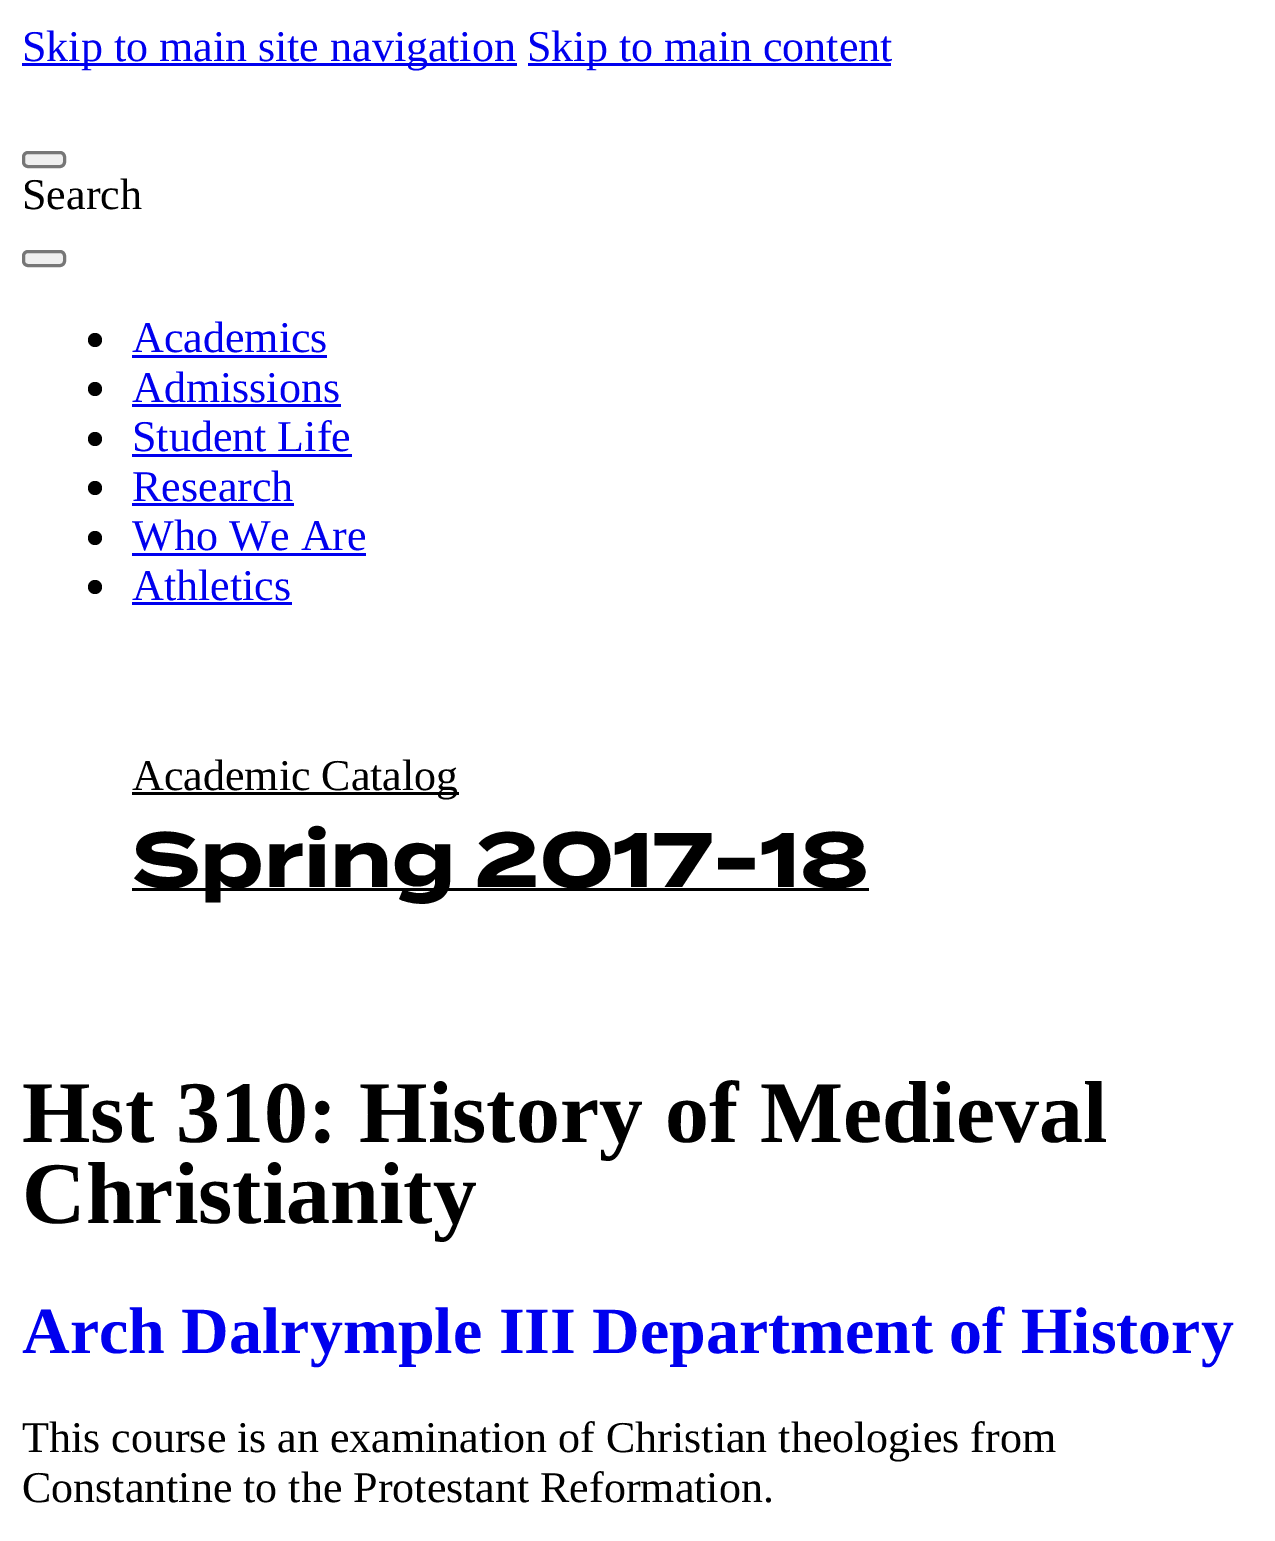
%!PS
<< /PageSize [1275 1541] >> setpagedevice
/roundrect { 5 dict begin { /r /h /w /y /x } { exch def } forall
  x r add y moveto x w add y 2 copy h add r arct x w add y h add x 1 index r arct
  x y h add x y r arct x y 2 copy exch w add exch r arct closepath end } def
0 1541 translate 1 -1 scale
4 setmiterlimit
1 setgray
0 0 1275 1541 rectfill
0 0 0.933 setrgbcolor
22 63 495 3 rectfill
/LiberationSerif-Regular [44 0 0 -44 0 0] selectfont
22 61 moveto (Skip to main site navigation) show
528 63 363 3 rectfill
527 61 moveto (Skip to main content) show
0.937 setgray
23.5 152.5 41 14 4.5 roundrect gsave fill grestore
0.463 setgray
3 setlinewidth
stroke
0 setgray
22 209 moveto (Search) show
0.937 setgray
23.5 251.5 41 14 4.5 roundrect gsave fill grestore
0.463 setgray
stroke
0 setgray
newpath 95 340 7 0 360 arc closepath fill
0 0 0.933 setrgbcolor
132 352 moveto (Academics) show
132 355 195 3 rectfill
0 setgray
newpath 95 389 7 0 360 arc closepath fill
0 0 0.933 setrgbcolor
132 402 moveto (Admissions) show
132 404 209 3 rectfill
0 setgray
newpath 95 439 7 0 360 arc closepath fill
0 0 0.933 setrgbcolor
132 451 moveto (Student Life) show
132 454 220 3 rectfill
0 setgray
newpath 95 488 7 0 360 arc closepath fill
0 0 0.933 setrgbcolor
132 501 moveto (Research) show
132 503 162 3 rectfill
0 setgray
newpath 95 538 7 0 360 arc closepath fill
0 0 0.933 setrgbcolor
132 550 moveto (Who We Are) show
132 553 234 3 rectfill
0 setgray
newpath 95 587 7 0 360 arc closepath fill
0 0 0.933 setrgbcolor
132 600 moveto (Athletics) show
132 602 160 3 rectfill
0 setgray
132 792 327 3 rectfill
132 790 moveto (Academic Catalog) show
132 888 737 3 rectfill
/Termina-Bold [77 0 0 -77 0 0] selectfont
132 887 moveto (Spring 2017-18) show
/LiberationSerif-Bold [88 0 0 -88 0 0] selectfont
22 1142 moveto (Hst 310: History of Medieval) show
22 1223 moveto (Christianity) show
/LiberationSerif-Bold [66 0 0 -66 0 0] selectfont
0 0 0.933 setrgbcolor
22 1353 moveto (Arch Dalrymple III Department of History) show
/LiberationSerif-Regular [44 0 0 -44 0 0] selectfont
0 setgray
22 1452 moveto (This course is an examination of Christian theologies from) show
22 1502 moveto (Constantine to the Protestant Reformation.) show
showpage
